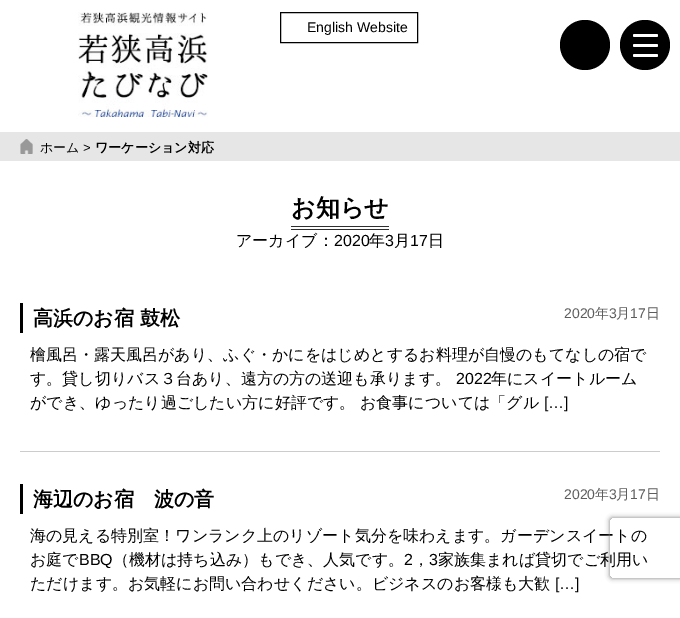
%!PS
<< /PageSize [680 618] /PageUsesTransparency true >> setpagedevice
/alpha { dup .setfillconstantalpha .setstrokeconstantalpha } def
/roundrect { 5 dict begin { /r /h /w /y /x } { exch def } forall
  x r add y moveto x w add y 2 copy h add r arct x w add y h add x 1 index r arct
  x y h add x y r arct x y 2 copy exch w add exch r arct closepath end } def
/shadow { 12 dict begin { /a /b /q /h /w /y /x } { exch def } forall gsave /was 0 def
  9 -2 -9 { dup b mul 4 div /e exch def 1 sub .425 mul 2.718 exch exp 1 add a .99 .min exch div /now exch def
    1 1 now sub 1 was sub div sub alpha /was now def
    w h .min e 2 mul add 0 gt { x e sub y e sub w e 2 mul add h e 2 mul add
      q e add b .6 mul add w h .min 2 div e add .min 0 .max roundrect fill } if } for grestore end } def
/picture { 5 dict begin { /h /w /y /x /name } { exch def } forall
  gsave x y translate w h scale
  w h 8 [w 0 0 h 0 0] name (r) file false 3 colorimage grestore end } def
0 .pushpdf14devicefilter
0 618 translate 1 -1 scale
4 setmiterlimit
1 setgray
0 0 680 618 rectfill
(img1.rgb) 78 12 130 105 picture
0 setgray
280.5 12.5 137 30 rectstroke
/LiberationSans-Regular [14 0 0 -14 0 0] selectfont
307 32 moveto (English Website) show
newpath 585 45 25 0 360 arc closepath fill
newpath 645 45 25 0 360 arc closepath fill
1 setgray
633 34 25 3 1.5 roundrect fill
633 44 25 3 1.5 roundrect fill
633 54 25 3 1.5 roundrect fill
0.902 setgray
0 132 680 29 rectfill
(img2.rgb) 20 139 13 15 picture
/WenQuanYiZenHei-Medium [13 0 0 -13 0 0] selectfont
0 setgray
40 152 moveto (ホーム) show
/LiberationSans-Regular [13 0 0 -13 0 0] selectfont
83 152 moveto (>) show
/WenQuanYiZenHei-Bold [13 0 0 -13 0 0] selectfont
95 152 moveto (ワーケーション対応) show
0.184 setgray
291 226 98 1 rectfill
291 229 98 1 rectfill
/WenQuanYiZenHei-Bold [24 0 0 -24 0 0] selectfont
0 setgray
291 216 moveto (お知らせ) show
/WenQuanYiZenHei-Medium [16 0 0 -16 0 0] selectfont
236 246 moveto (アーカイブ：) show
/LiberationSans-Regular [16 0 0 -16 0 0] selectfont
334 246 moveto (2020) show
/WenQuanYiZenHei-Medium [16 0 0 -16 0 0] selectfont
369 246 moveto (年) show
/LiberationSans-Regular [16 0 0 -16 0 0] selectfont
385 246 moveto (3) show
/WenQuanYiZenHei-Medium [16 0 0 -16 0 0] selectfont
394 246 moveto (月) show
/LiberationSans-Regular [16 0 0 -16 0 0] selectfont
410 246 moveto (17) show
/WenQuanYiZenHei-Medium [16 0 0 -16 0 0] selectfont
428 246 moveto (日) show
0.8 setgray
20 451 640 1 rectfill
0 setgray
20 303 3 30 rectfill
/WenQuanYiZenHei-Bold [20 0 0 -20 0 0] selectfont
33 325 moveto (高浜のお宿 鼓松) show
/LiberationSans-Regular [14 0 0 -14 0 0] selectfont
0.365 setgray
564 318 moveto (2020) show
/WenQuanYiZenHei-Medium [14 0 0 -14 0 0] selectfont
595 318 moveto (年) show
/LiberationSans-Regular [14 0 0 -14 0 0] selectfont
609 318 moveto (3) show
/WenQuanYiZenHei-Medium [14 0 0 -14 0 0] selectfont
616 318 moveto (月) show
/LiberationSans-Regular [14 0 0 -14 0 0] selectfont
630 318 moveto (17) show
/WenQuanYiZenHei-Medium [14 0 0 -14 0 0] selectfont
646 318 moveto (日) show
/WenQuanYiZenHei-Medium [16 0 0 -16 0 0] selectfont
0 setgray
30 360 moveto (檜風呂・露天風呂があり、ふぐ・かにをはじめとするお料理が自慢のもてなしの宿で) show
30 384 moveto (す。貸し切りバス３台あり、遠方の方の送迎も承ります。) show
/LiberationSans-Regular [16 0 0 -16 0 0] selectfont
456 384 moveto (2022) show
/WenQuanYiZenHei-Medium [16 0 0 -16 0 0] selectfont
491 384 moveto (年にスイートルーム) show
30 408 moveto (ができ、ゆったり過ごしたい方に好評です。 お食事については「グル) show
/LiberationSans-Regular [16 0 0 -16 0 0] selectfont
544 408 moveto ([…]) show
20 484 3 30 rectfill
/WenQuanYiZenHei-Bold [20 0 0 -20 0 0] selectfont
33 506 moveto (海辺のお宿　波の音) show
/LiberationSans-Regular [14 0 0 -14 0 0] selectfont
0.365 setgray
564 499 moveto (2020) show
/WenQuanYiZenHei-Medium [14 0 0 -14 0 0] selectfont
595 499 moveto (年) show
/LiberationSans-Regular [14 0 0 -14 0 0] selectfont
609 499 moveto (3) show
/WenQuanYiZenHei-Medium [14 0 0 -14 0 0] selectfont
616 499 moveto (月) show
/LiberationSans-Regular [14 0 0 -14 0 0] selectfont
630 499 moveto (17) show
/WenQuanYiZenHei-Medium [14 0 0 -14 0 0] selectfont
646 499 moveto (日) show
/WenQuanYiZenHei-Medium [16 0 0 -16 0 0] selectfont
0 setgray
30 541 moveto (海の見える特別室！ワンランク上のリゾート気分を味わえます。ガーデンスイートの) show
30 565 moveto (お庭で) show
/LiberationSans-Regular [16 0 0 -16 0 0] selectfont
79 565 moveto (BBQ) show
/WenQuanYiZenHei-Medium [16 0 0 -16 0 0] selectfont
113 565 moveto (（機材は持ち込み）もでき、人気です。) show
/LiberationSans-Regular [16 0 0 -16 0 0] selectfont
404 565 moveto (2) show
/WenQuanYiZenHei-Medium [16 0 0 -16 0 0] selectfont
413 565 moveto (，) show
/LiberationSans-Regular [16 0 0 -16 0 0] selectfont
429 565 moveto (3) show
/WenQuanYiZenHei-Medium [16 0 0 -16 0 0] selectfont
438 565 moveto (家族集まれば貸切でご利用い) show
30 589 moveto (ただけます。お気軽にお問い合わせください。ビジネスのお客様も大歓) show
/LiberationSans-Regular [16 0 0 -16 0 0] selectfont
555 589 moveto ([…]) show
gsave
newpath 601 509 moveto 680 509 lineto 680 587 lineto 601 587 lineto closepath 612 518 moveto 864 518 lineto 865 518 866 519 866 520 curveto 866 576 lineto 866 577 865 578 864 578 curveto 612 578 lineto 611 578 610 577 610 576 curveto 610 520 lineto 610 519 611 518 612 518 curveto closepath eoclip newpath
0.502 setgray
610 518 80 60 2 2.5 1 shadow
grestore
.poppdf14devicefilter showpage
